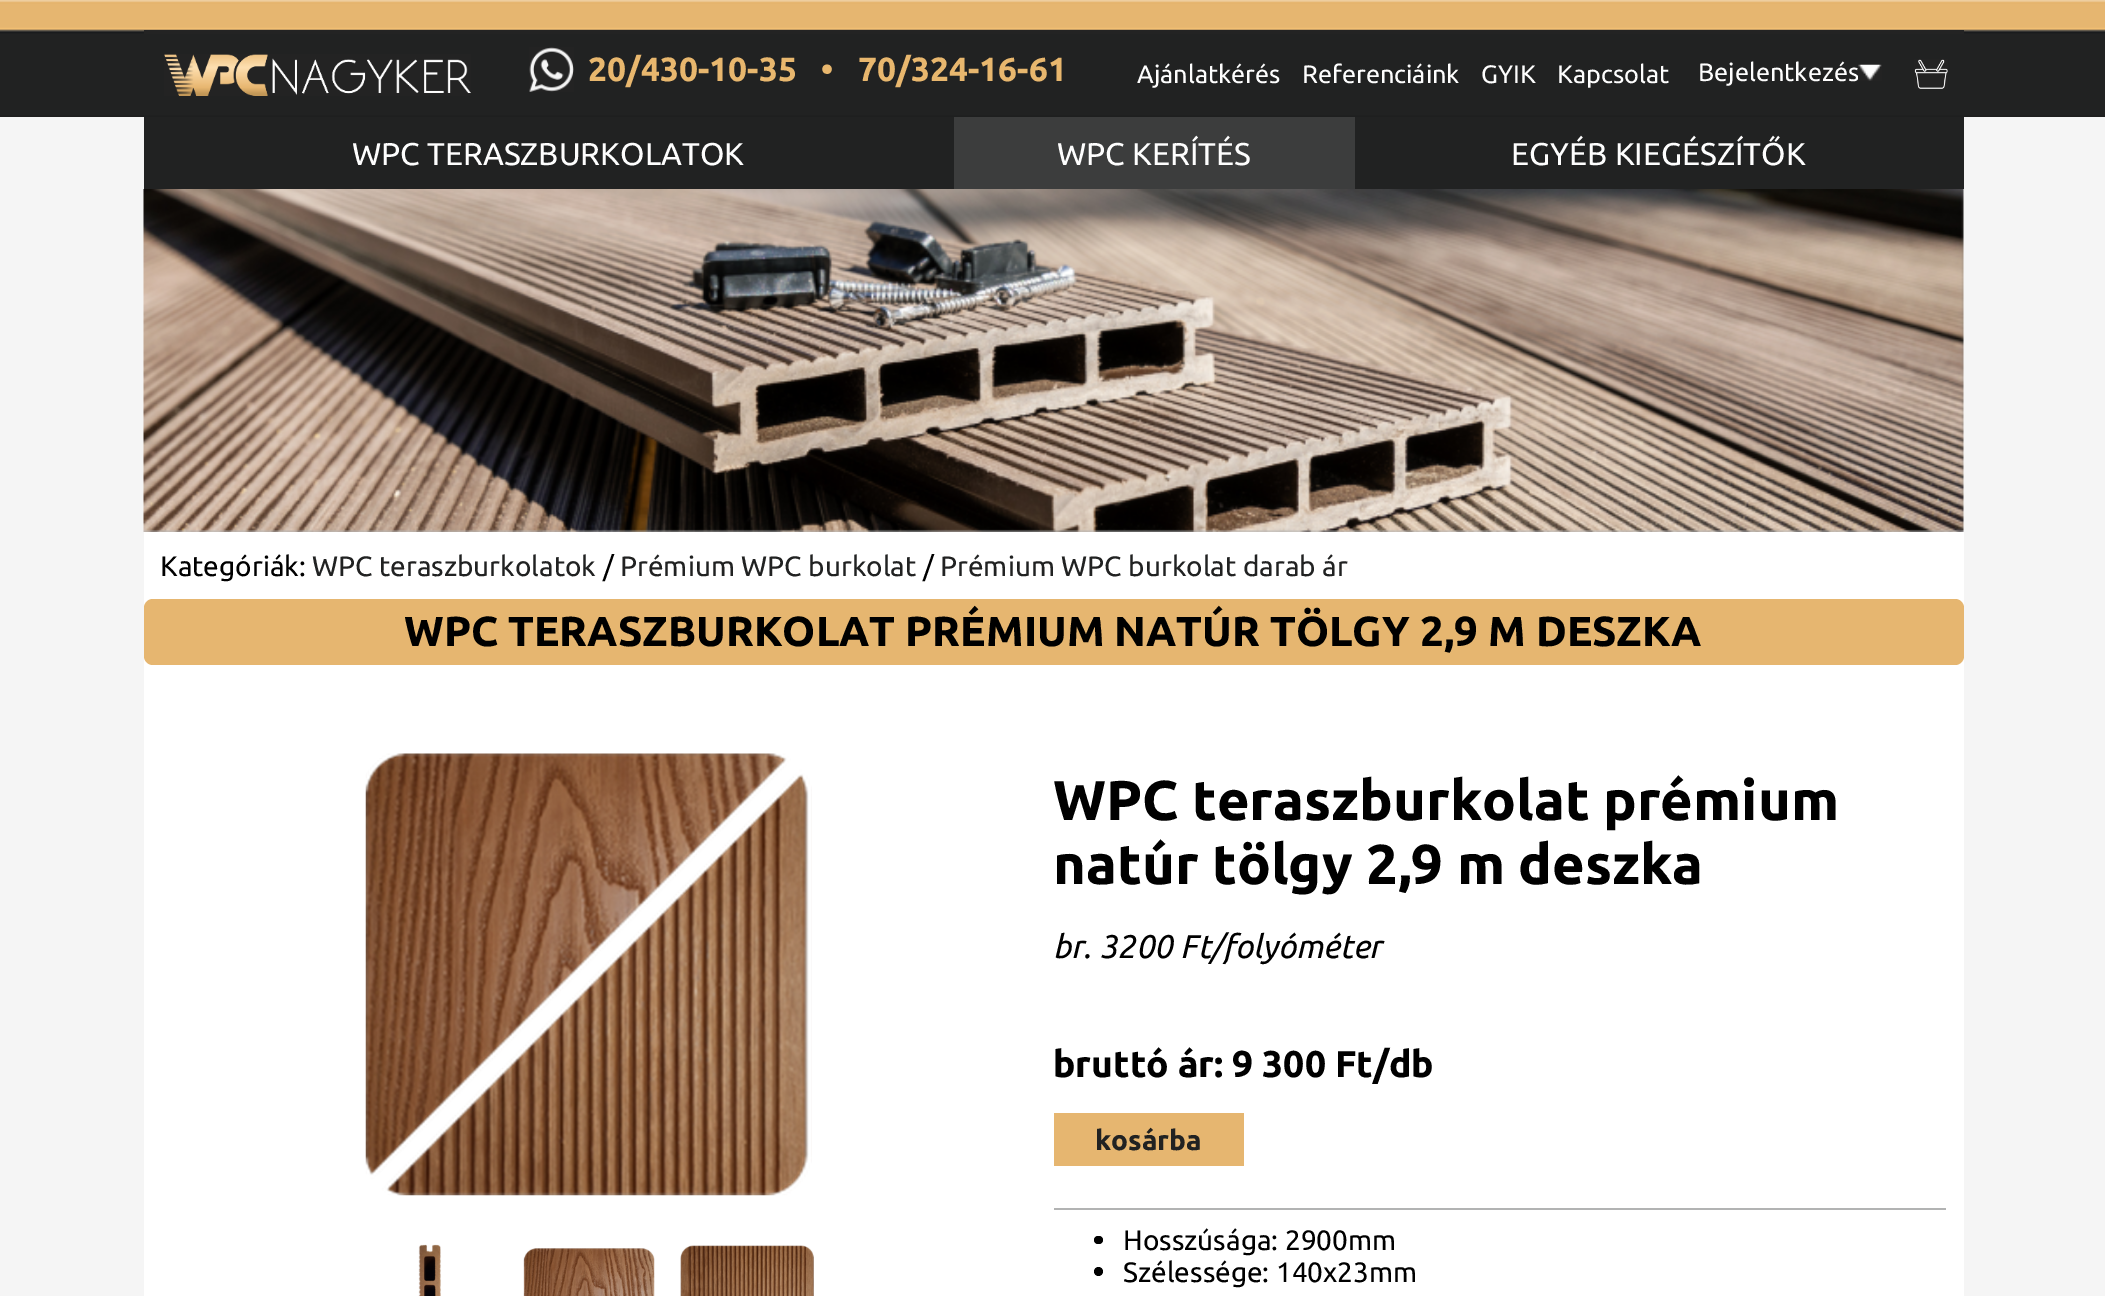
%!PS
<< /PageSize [2105 1296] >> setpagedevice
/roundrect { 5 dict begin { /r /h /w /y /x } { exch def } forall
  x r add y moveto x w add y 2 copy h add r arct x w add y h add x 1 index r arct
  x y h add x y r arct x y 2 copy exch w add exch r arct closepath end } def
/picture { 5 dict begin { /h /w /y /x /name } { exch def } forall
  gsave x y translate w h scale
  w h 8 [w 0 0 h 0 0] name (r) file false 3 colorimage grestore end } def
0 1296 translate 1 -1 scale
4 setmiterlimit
0.961 setgray
0 0 2105 1296 rectfill
(img1.rgb) 0 0 2105 117 picture
0.137 setgray
144 30 1820 4 rectfill
(img2.rgb) 164 54 307 42 picture
(img3.rgb) 529 47 45 45 picture
/Ubuntu-Bold [33.5 0 0 -33.5 0 0] selectfont
0.91 0.718 0.431 setrgbcolor
588 81 moveto (20/430-10-35) show
821 81 moveto (•) show
858 81 moveto (70/324-16-61) show
/Ubuntu-Regular [25.25 0 0 -25.25 0 0] selectfont
0.996 setgray
1137 83 moveto (Ajánlatkérés) show
1302 83 moveto (Referenciáink) show
1481 83 moveto (GYIK) show
1557 83 moveto (Kapcsolat) show
1698 81 moveto (Bejelentkezés) show
(img4.rgb) 1858 64 24 17 picture
(img5.rgb) 1914 59 34 30 picture
(img6.rgb) 143 189 1821 343 picture
0.129 0.133 0.133 setrgbcolor
144 117 810 72 rectfill
/Ubuntu-Regular [31.5 0 0 -31.5 0 0] selectfont
0.996 setgray
352 165 moveto (WPC TERASZBURKOLATOK) show
0.235 0.239 0.239 setrgbcolor
954 117 401 72 rectfill
0.996 setgray
1057 165 moveto (WPC KERÍTÉS) show
0.129 0.133 0.133 setrgbcolor
1355 117 609 72 rectfill
0.996 setgray
1511 165 moveto (EGYÉB KIEGÉSZÍTŐK) show
1 setgray
144 532 1820 764 rectfill
/Ubuntu-Regular [28 0 0 -28 0 0] selectfont
0 setgray
160 576 moveto (Kategóriák:) show
0.129 0.133 0.133 setrgbcolor
312 576 moveto (WPC teraszburkolatok) show
0 setgray
603 576 moveto (/) show
0.129 0.133 0.133 setrgbcolor
620 576 moveto (Prémium WPC burkolat) show
0 setgray
923 576 moveto (/) show
0.129 0.133 0.133 setrgbcolor
940 576 moveto (Prémium WPC burkolat darab ár) show
0.902 0.714 0.439 setrgbcolor
144 599 1820 66 9 roundrect fill
/Ubuntu-Bold [42 0 0 -42 0 0] selectfont
0 setgray
404 646 moveto (WPC TERASZBURKOLAT PRÉMIUM NATÚR TÖLGY 2,9 M DESZKA) show
(img7.rgb) 365 753 447 443 picture
(img8.rgb) 418 1244 23 52 picture
(img9.rgb) 523 1248 132 48 picture
(img10.rgb) 680 1245 134 51 picture
/Ubuntu-Bold [56 0 0 -56 0 0] selectfont
1053 820 moveto (WPC teraszburkolat prémium) show
1053 884 moveto (natúr tölgy 2,9 m deszka) show
/Ubuntu-Italic [32.75 0 0 -32.75 0 0] selectfont
1053 958 moveto (br. 3200 Ft/folyóméter) show
/Ubuntu-Bold [37.25 0 0 -37.25 0 0] selectfont
1053 1077 moveto (bruttó ár: 9 300 Ft/db) show
0.902 0.714 0.439 setrgbcolor
1054 1113 190 53 rectfill
/Ubuntu-Bold [28 0 0 -28 0 0] selectfont
0.129 0.133 0.133 setrgbcolor
1095 1150 moveto (kosárba) show
0.698 0.702 0.702 setrgbcolor
1054 1208 892 2 rectfill
0 setgray
1094 1236 9 8 4 roundrect fill
/Ubuntu-Regular [28 0 0 -28 0 0] selectfont
1123 1250 moveto (Hosszúsága: 2900mm) show
newpath 1098.5 1271.5 4.5 0 360 arc closepath fill
1123 1282 moveto (Szélessége: 140x23mm) show
showpage
